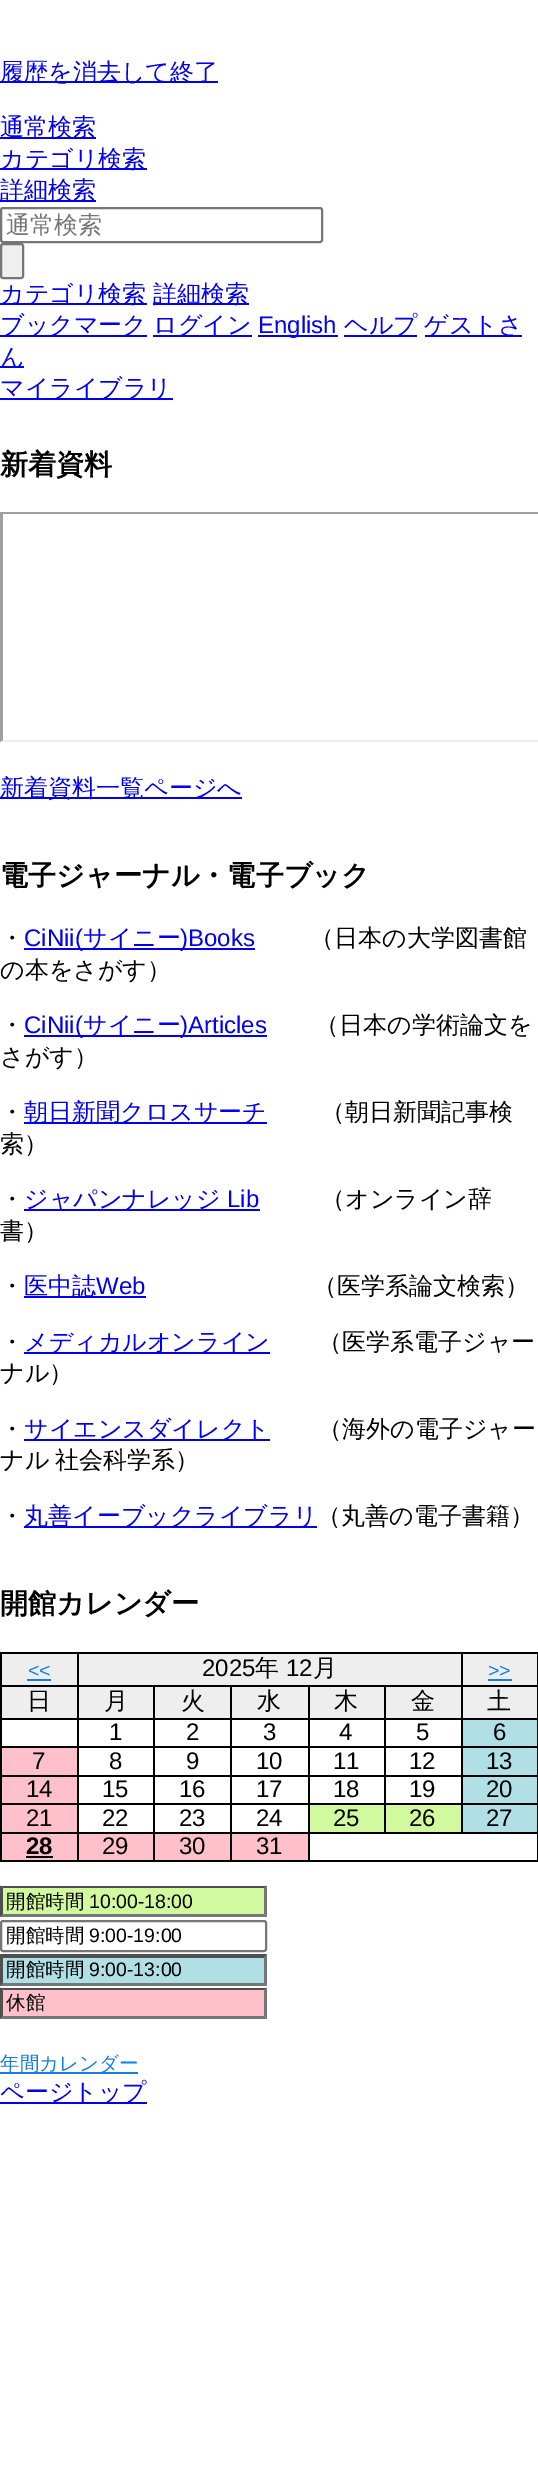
%!PS
<< /PageSize [538 2482] >> setpagedevice
/roundrect { 5 dict begin { /r /h /w /y /x } { exch def } forall
  x r add y moveto x w add y 2 copy h add r arct x w add y h add x 1 index r arct
  x y h add x y r arct x y 2 copy exch w add exch r arct closepath end } def
0 2482 translate 1 -1 scale
4 setmiterlimit
1 setgray
0 0 538 2482 rectfill
0 0 0.933 setrgbcolor
0 81 218 2 rectfill
/WenQuanYiZenHei-Medium [24 0 0 -24 0 0] selectfont
0 80 moveto (履歴を消去して終了) show
0 137 96 2 rectfill
0 135 moveto (通常検索) show
0 168 147 2 rectfill
0 167 moveto (カテゴリ検索) show
0 200 96 2 rectfill
0 198 moveto (詳細検索) show
0.463 setgray
2 setlinewidth
1 208 321 34 2 roundrect stroke
0.459 setgray
6 233 moveto (通常検索) show
0.937 setgray
1 244 22 34 2 roundrect gsave fill grestore
0.463 setgray
stroke
0 0 0.933 setrgbcolor
0 303 147 2 rectfill
0 302 moveto (カテゴリ検索) show
153 303 96 2 rectfill
153 302 moveto (詳細検索) show
0 335 147 2 rectfill
0 333 moveto (ブックマーク) show
153 335 99 2 rectfill
153 333 moveto (ログイン) show
258 335 80 2 rectfill
/LiberationSans-Regular [24 0 0 -24 0 0] selectfont
258 333 moveto (English) show
344 335 73 2 rectfill
/WenQuanYiZenHei-Medium [24 0 0 -24 0 0] selectfont
344 333 moveto (ヘルプ) show
425 335 97 2 rectfill
424 333 moveto (ゲストさ) show
0 366 24 2 rectfill
0 365 moveto (ん) show
0 398 173 2 rectfill
0 396 moveto (マイライブラリ) show
/WenQuanYiZenHei-Bold [28.1 0 0 -28.1 0 0] selectfont
0 setgray
0 474 moveto (新着資料) show
0.624 setgray
newpath 0 512 moveto 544 512 lineto 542 514 lineto 3 514 lineto closepath fill
0.933 setgray
newpath 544 742 moveto 0 742 lineto 3 740 lineto 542 740 lineto closepath fill
0.624 setgray
newpath 0 742 moveto 0 512 lineto 3 514 lineto 3 740 lineto closepath fill
0 0 0.933 setrgbcolor
0 797 242 2 rectfill
/WenQuanYiZenHei-Medium [24 0 0 -24 0 0] selectfont
0 796 moveto (新着資料一覧ページへ) show
/WenQuanYiZenHei-Bold [28.1 0 0 -28.1 0 0] selectfont
0 setgray
0 885 moveto (電子ジャーナル・電子ブック) show
/WenQuanYiZenHei-Medium [24 0 0 -24 0 0] selectfont
0 946 moveto (・) show
0 0 0.933 setrgbcolor
24 948 231 2 rectfill
/LiberationSans-Regular [24 0 0 -24 0 0] selectfont
24 946 moveto (CiNii\() show
/WenQuanYiZenHei-Medium [24 0 0 -24 0 0] selectfont
83 946 moveto (サイニー) show
/LiberationSans-Regular [24 0 0 -24 0 0] selectfont
180 946 moveto (\)Books) show
/WenQuanYiZenHei-Medium [24 0 0 -24 0 0] selectfont
0 setgray
310 946 moveto (（日本の大学図書館) show
0 978 moveto (の本をさがす）) show
0 1033 moveto (・) show
0 0 0.933 setrgbcolor
24 1035 243 2 rectfill
/LiberationSans-Regular [24 0 0 -24 0 0] selectfont
24 1033 moveto (CiNii\() show
/WenQuanYiZenHei-Medium [24 0 0 -24 0 0] selectfont
83 1033 moveto (サイニー) show
/LiberationSans-Regular [24 0 0 -24 0 0] selectfont
180 1033 moveto (\)Articles) show
/WenQuanYiZenHei-Medium [24 0 0 -24 0 0] selectfont
0 setgray
315 1033 moveto (（日本の学術論文を) show
0 1065 moveto (さがす）) show
0 1120 moveto (・) show
0 0 0.933 setrgbcolor
24 1122 243 2 rectfill
24 1120 moveto (朝日新聞クロスサーチ) show
0 setgray
321 1120 moveto (（朝日新聞記事検) show
0 1152 moveto (索）) show
0 1207 moveto (・) show
0 0 0.933 setrgbcolor
24 1209 236 2 rectfill
24 1207 moveto (ジャパンナレッジ) show
/LiberationSans-Regular [24 0 0 -24 0 0] selectfont
227 1207 moveto (Lib) show
/WenQuanYiZenHei-Medium [24 0 0 -24 0 0] selectfont
0 setgray
321 1207 moveto (（オンライン辞) show
0 1239 moveto (書）) show
0 1294 moveto (・) show
0 0 0.933 setrgbcolor
24 1296 122 2 rectfill
24 1294 moveto (医中誌) show
/LiberationSans-Regular [24 0 0 -24 0 0] selectfont
96 1294 moveto (Web) show
/WenQuanYiZenHei-Medium [24 0 0 -24 0 0] selectfont
0 setgray
313 1294 moveto (（医学系論文検索）) show
0 1350 moveto (・) show
0 0 0.933 setrgbcolor
24 1352 246 2 rectfill
24 1350 moveto (メディカルオンライン) show
0 setgray
318 1350 moveto (（医学系電子ジャー) show
0 1381 moveto (ナル）) show
0 1437 moveto (・) show
0 0 0.933 setrgbcolor
24 1439 246 2 rectfill
24 1437 moveto (サイエンスダイレクト) show
0 setgray
318 1437 moveto (（海外の電子ジャー) show
0 1468 moveto -1 0 32 (ナル 社会科学系）) widthshow
0 1524 moveto (・) show
0 0 0.933 setrgbcolor
24 1526 293 2 rectfill
24 1524 moveto (丸善イーブックライブラリ) show
0 setgray
317 1524 moveto (（丸善の電子書籍）) show
/WenQuanYiZenHei-Bold [28.1 0 0 -28.1 0 0] selectfont
0 1613 moveto (開館カレンダー) show
0.933 setgray
2 1654 535 31 rectfill
0 setgray
461 1652 77 2 rectfill
461 1685 77 2 rectfill
0.933 setgray
2 1687 535 31 rectfill
0 setgray
461 1718 77 2 rectfill
461 1746 77 2 rectfill
461 1775 77 2 rectfill
461 1803 77 2 rectfill
308 1832 230 2 rectfill
461 1803 2 30 rectfill
384 1803 78 2 rectfill
461 1775 2 30 rectfill
384 1775 78 2 rectfill
461 1746 2 30 rectfill
384 1746 78 2 rectfill
461 1718 2 30 rectfill
384 1718 78 2 rectfill
461 1685 2 34 rectfill
384 1685 78 2 rectfill
461 1652 2 34 rectfill
77 1652 385 2 rectfill
384 1803 2 30 rectfill
308 1803 78 2 rectfill
384 1775 2 30 rectfill
308 1775 78 2 rectfill
384 1746 2 30 rectfill
308 1746 78 2 rectfill
384 1718 2 30 rectfill
308 1718 78 2 rectfill
384 1685 2 34 rectfill
308 1685 78 2 rectfill
537 1832 1 30 rectfill
308 1860 230 2 rectfill
308 1832 2 30 rectfill
230 1832 79 2 rectfill
308 1803 2 30 rectfill
230 1803 79 2 rectfill
308 1775 2 30 rectfill
230 1775 79 2 rectfill
308 1746 2 30 rectfill
230 1746 79 2 rectfill
308 1718 2 30 rectfill
230 1718 79 2 rectfill
308 1685 2 34 rectfill
230 1685 79 2 rectfill
230 1860 79 2 rectfill
230 1832 2 30 rectfill
153 1832 78 2 rectfill
230 1803 2 30 rectfill
153 1803 78 2 rectfill
230 1775 2 30 rectfill
153 1775 78 2 rectfill
230 1746 2 30 rectfill
153 1746 78 2 rectfill
230 1718 2 30 rectfill
153 1718 78 2 rectfill
230 1685 2 34 rectfill
153 1685 78 2 rectfill
153 1860 78 2 rectfill
153 1832 2 30 rectfill
77 1832 78 2 rectfill
153 1803 2 30 rectfill
77 1803 78 2 rectfill
153 1775 2 30 rectfill
77 1775 78 2 rectfill
153 1746 2 30 rectfill
77 1746 78 2 rectfill
153 1718 2 30 rectfill
77 1718 78 2 rectfill
153 1685 2 34 rectfill
77 1685 78 2 rectfill
77 1860 78 2 rectfill
77 1832 2 30 rectfill
0 1832 78 2 rectfill
77 1803 2 30 rectfill
0 1803 78 2 rectfill
77 1775 2 30 rectfill
0 1775 78 2 rectfill
77 1746 2 30 rectfill
0 1746 78 2 rectfill
77 1718 2 30 rectfill
0 1718 78 2 rectfill
77 1685 2 34 rectfill
0 1685 78 2 rectfill
77 1652 2 34 rectfill
0 1652 78 2 rectfill
0 1860 78 2 rectfill
0 1832 2 30 rectfill
0 1803 2 30 rectfill
0 1775 2 30 rectfill
0 1746 2 30 rectfill
0 1718 2 30 rectfill
0 1685 2 34 rectfill
0 1652 2 34 rectfill
/LiberationSans-Regular [19.5 0 0 -19.5 0 0] selectfont
0.086 0.49 0.906 setrgbcolor
28 1677 moveto (<<) show
27 1679 24 2 rectfill
/LiberationSans-Regular [24 0 0 -24 0 0] selectfont
0 setgray
202 1676 moveto (2025) show
/WenQuanYiZenHei-Medium [24 0 0 -24 0 0] selectfont
255 1676 moveto (年) show
/LiberationSans-Regular [24 0 0 -24 0 0] selectfont
286 1676 moveto (12) show
/WenQuanYiZenHei-Medium [24 0 0 -24 0 0] selectfont
313 1676 moveto (月) show
537 1803 1 30 rectfill
537 1775 1 30 rectfill
537 1746 1 30 rectfill
537 1718 1 30 rectfill
537 1685 1 34 rectfill
537 1652 1 34 rectfill
/LiberationSans-Regular [19.5 0 0 -19.5 0 0] selectfont
0.086 0.49 0.906 setrgbcolor
488 1677 moveto (>>) show
488 1679 24 2 rectfill
/WenQuanYiZenHei-Medium [24 0 0 -24 0 0] selectfont
0 setgray
27 1709 moveto (日) show
104 1709 moveto (月) show
181 1709 moveto (火) show
257 1709 moveto (水) show
334 1709 moveto (木) show
411 1709 moveto (金) show
487 1709 moveto (土) show
/LiberationSans-Regular [24 0 0 -24 0 0] selectfont
109 1740 moveto (1) show
186 1740 moveto (2) show
263 1740 moveto (3) show
339 1740 moveto (4) show
416 1740 moveto (5) show
0.69 0.878 0.902 setrgbcolor
463 1720 74 26 rectfill
0 setgray
493 1740 moveto (6) show
1 0.753 0.796 setrgbcolor
2 1748 75 27 rectfill
0 setgray
32 1769 moveto (7) show
109 1769 moveto (8) show
186 1769 moveto (9) show
256 1769 moveto (10) show
333 1769 moveto (11) show
409 1769 moveto (12) show
0.69 0.878 0.902 setrgbcolor
463 1748 74 27 rectfill
0 setgray
486 1769 moveto (13) show
1 0.753 0.796 setrgbcolor
2 1777 75 26 rectfill
0 setgray
26 1797 moveto (14) show
102 1797 moveto (15) show
179 1797 moveto (16) show
256 1797 moveto (17) show
333 1797 moveto (18) show
409 1797 moveto (19) show
0.69 0.878 0.902 setrgbcolor
463 1777 74 26 rectfill
0 setgray
486 1797 moveto (20) show
1 0.753 0.796 setrgbcolor
2 1805 75 27 rectfill
0 setgray
26 1826 moveto (21) show
102 1826 moveto (22) show
179 1826 moveto (23) show
256 1826 moveto (24) show
0.82 0.98 0.62 setrgbcolor
310 1805 74 27 rectfill
0 setgray
333 1826 moveto (25) show
0.82 0.98 0.62 setrgbcolor
386 1805 75 27 rectfill
0 setgray
409 1826 moveto (26) show
0.69 0.878 0.902 setrgbcolor
463 1805 74 27 rectfill
0 setgray
486 1826 moveto (27) show
1 0.753 0.796 setrgbcolor
2 1834 75 26 rectfill
/LiberationSans-Bold [24 0 0 -24 0 0] selectfont
0 setgray
26 1854 moveto (28) show
26 1856 27 2 rectfill
1 0.753 0.796 setrgbcolor
79 1834 74 26 rectfill
/LiberationSans-Regular [24 0 0 -24 0 0] selectfont
0 setgray
102 1854 moveto (29) show
1 0.753 0.796 setrgbcolor
155 1834 75 26 rectfill
0 setgray
179 1854 moveto (30) show
1 0.753 0.796 setrgbcolor
232 1834 76 26 rectfill
0 setgray
256 1854 moveto (31) show
0.82 0.98 0.62 setrgbcolor
0 1886 267 31 rectfill
0.31 setgray
newpath 0 1886 moveto 267 1886 lineto 264 1888 lineto 3 1888 lineto closepath fill
0.463 setgray
newpath 267 1885.5 moveto 267 1917 lineto 264 1914 lineto 264 1888.5 lineto closepath fill
newpath 267 1917 moveto 0 1917 lineto 3 1914 lineto 264 1914 lineto closepath fill
0.31 setgray
newpath 0 1917 moveto 0 1885.5 lineto 3 1888.5 lineto 3 1914 lineto closepath fill
/WenQuanYiZenHei-Medium [19.5 0 0 -19.5 0 0] selectfont
0 setgray
6 1908 moveto (開館時間) show
/LiberationSans-Regular [19.5 0 0 -19.5 0 0] selectfont
89 1908 moveto (10:00-18:00) show
0.463 setgray
1 1921 265 30 2 roundrect stroke
/WenQuanYiZenHei-Medium [19.5 0 0 -19.5 0 0] selectfont
0 setgray
6 1942 moveto (開館時間) show
/LiberationSans-Regular [19.5 0 0 -19.5 0 0] selectfont
89 1942 moveto (9:00-19:00) show
0.69 0.878 0.902 setrgbcolor
0 1955 267 31 rectfill
0.31 setgray
newpath 0 1954 moveto 267 1954 lineto 264 1958 lineto 3 1958 lineto closepath fill
0.463 setgray
newpath 267 1954.5 moveto 267 1986 lineto 264 1983 lineto 264 1957.5 lineto closepath fill
newpath 267 1986 moveto 0 1986 lineto 3 1983 lineto 264 1983 lineto closepath fill
0.31 setgray
newpath 0 1986 moveto 0 1954.5 lineto 3 1957.5 lineto 3 1983 lineto closepath fill
/WenQuanYiZenHei-Medium [19.5 0 0 -19.5 0 0] selectfont
0 setgray
6 1976 moveto (開館時間) show
/LiberationSans-Regular [19.5 0 0 -19.5 0 0] selectfont
89 1976 moveto (9:00-13:00) show
1 0.753 0.796 setrgbcolor
0 1988 267 31 rectfill
0.31 setgray
newpath 0 1988 moveto 267 1988 lineto 264 1990 lineto 3 1990 lineto closepath fill
0.463 setgray
newpath 267 1987.5 moveto 267 2019 lineto 264 2016 lineto 264 1990.5 lineto closepath fill
newpath 267 2019 moveto 0 2019 lineto 3 2016 lineto 264 2016 lineto closepath fill
0.31 setgray
newpath 0 2019 moveto 0 1987.5 lineto 3 1990.5 lineto 3 2016 lineto closepath fill
/WenQuanYiZenHei-Medium [19.5 0 0 -19.5 0 0] selectfont
0 setgray
6 2009 moveto (休館) show
0.086 0.49 0.906 setrgbcolor
0 2072 138 2 rectfill
0 2070 moveto (年間カレンダー) show
0 0 0.933 setrgbcolor
0 2102 147 2 rectfill
/WenQuanYiZenHei-Medium [24 0 0 -24 0 0] selectfont
0 2100 moveto (ページトップ) show
showpage
